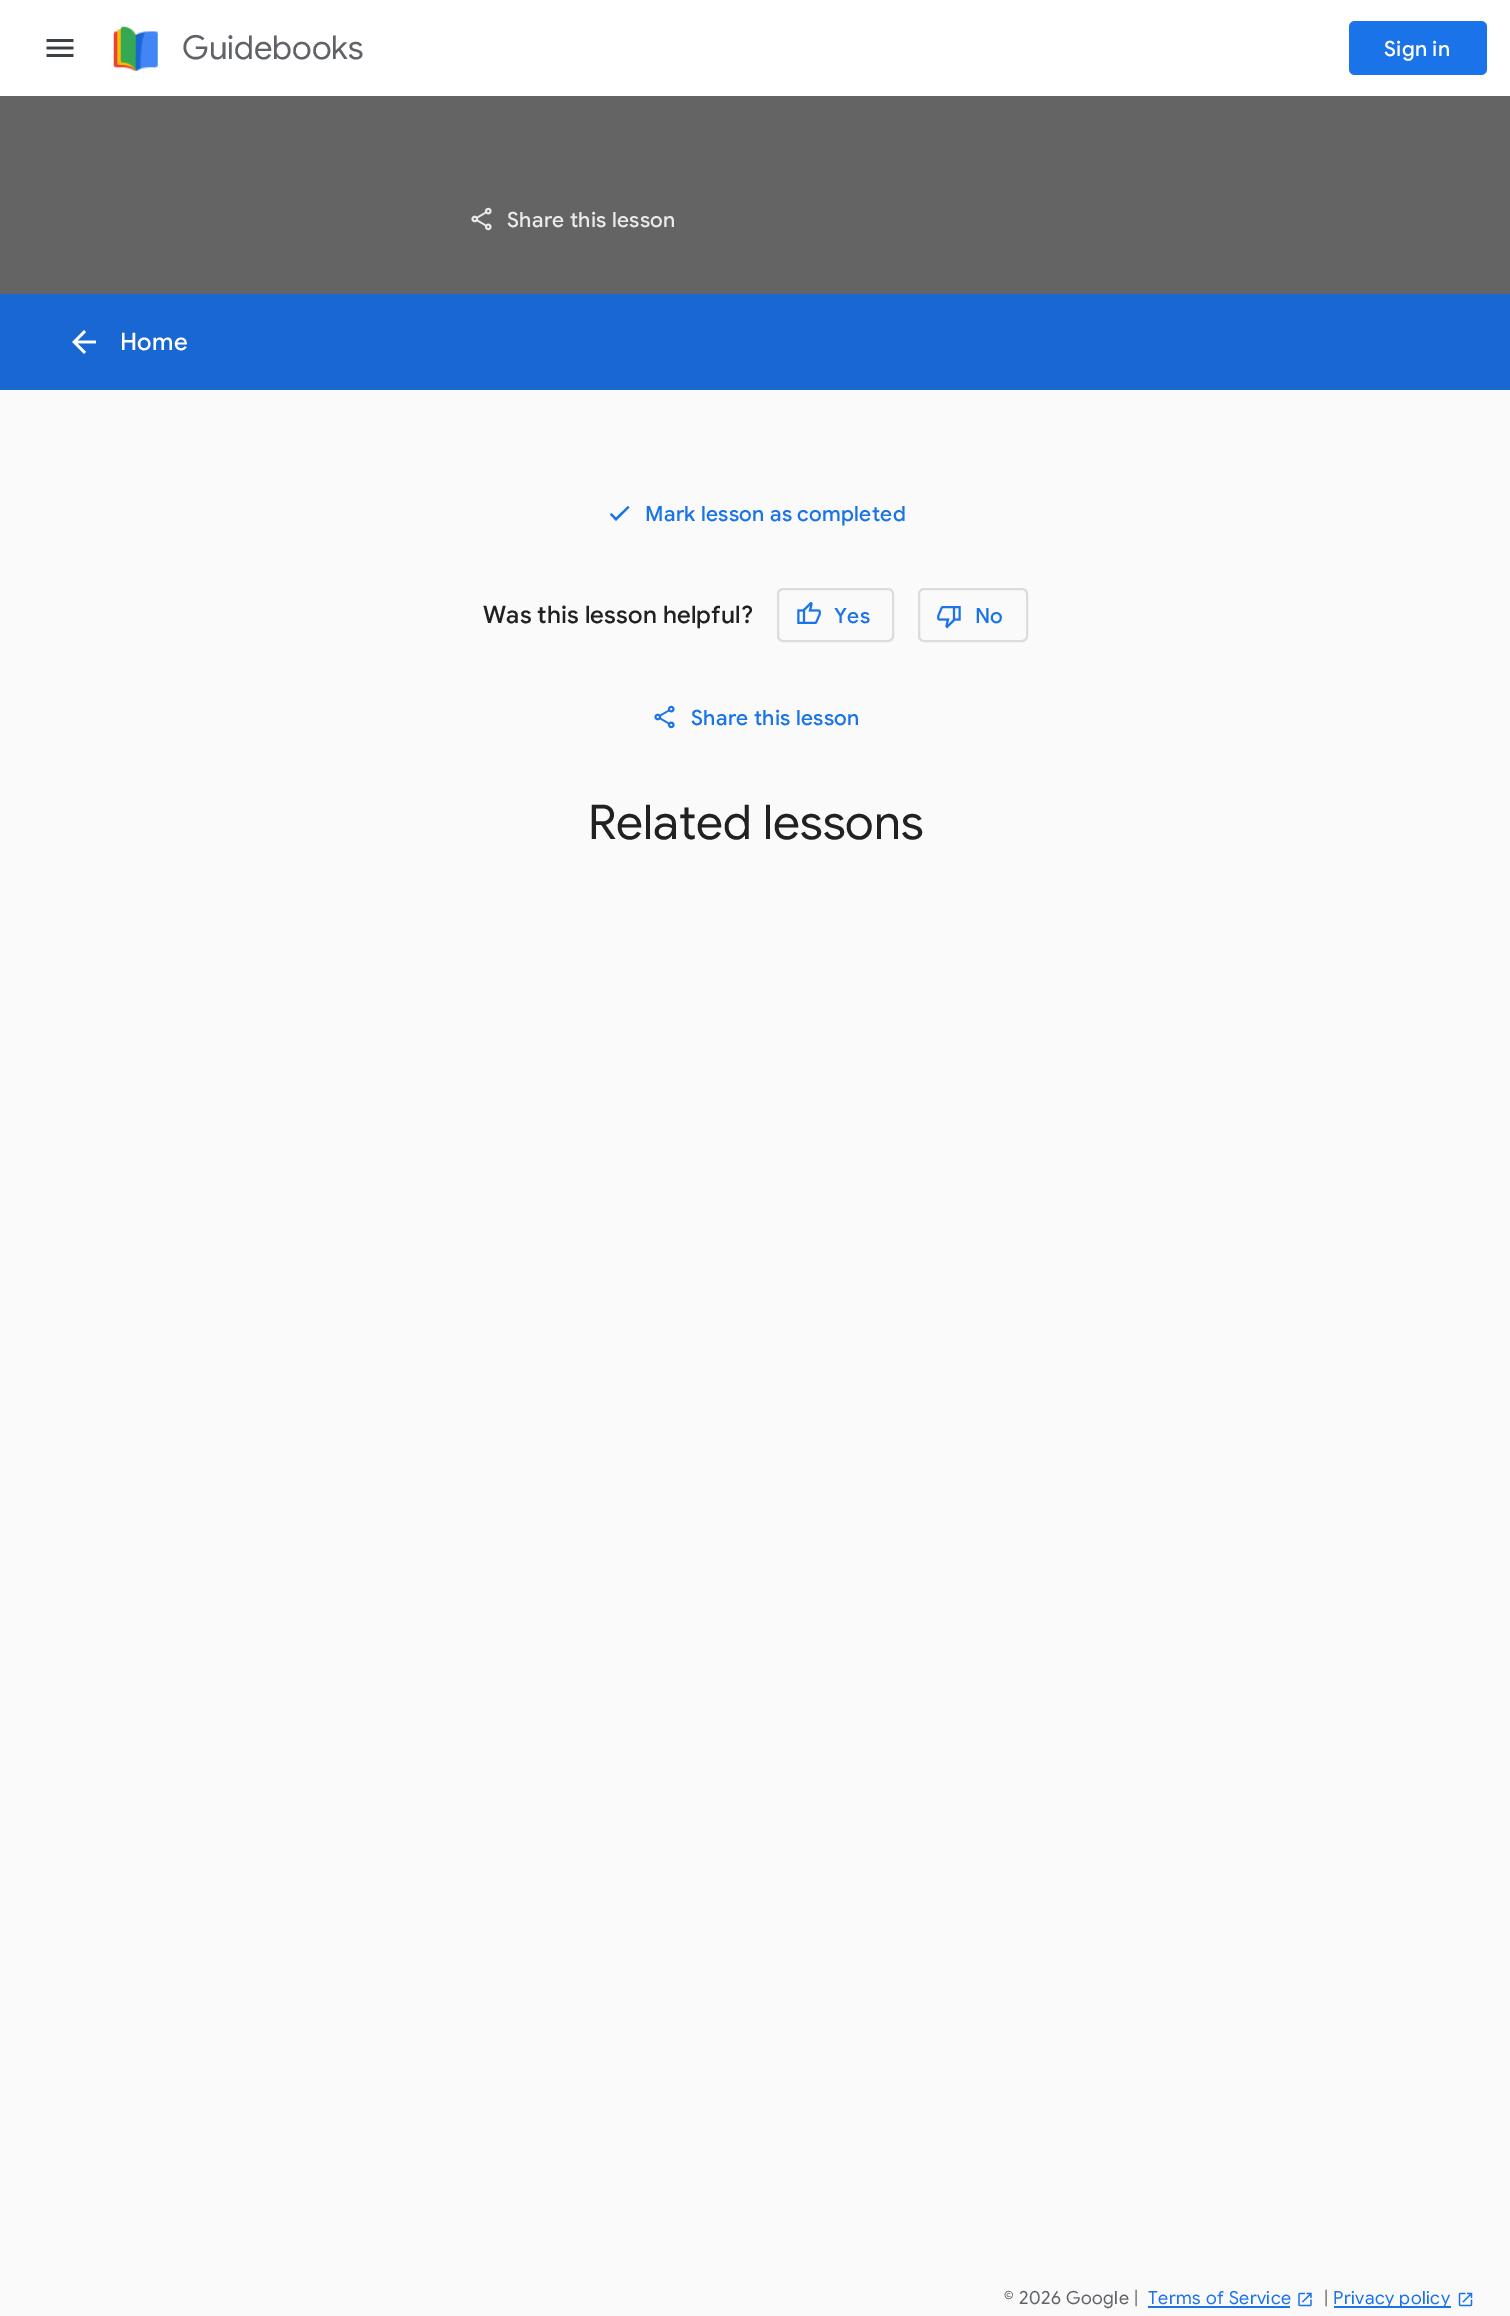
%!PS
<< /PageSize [1510 2316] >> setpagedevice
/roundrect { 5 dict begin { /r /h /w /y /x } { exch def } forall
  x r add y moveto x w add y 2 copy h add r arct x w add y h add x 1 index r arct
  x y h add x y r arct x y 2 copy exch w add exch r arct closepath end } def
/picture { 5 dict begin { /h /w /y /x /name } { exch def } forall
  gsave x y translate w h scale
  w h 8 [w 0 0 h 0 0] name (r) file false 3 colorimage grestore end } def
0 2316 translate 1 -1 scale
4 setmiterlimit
1 setgray
0 0 1510 2316 rectfill
(img1.rgb) 46 39 28 18 picture
(img2.rgb) 113 26 45 45 picture
/GoogleSans-Regular [33 0 0 -33 0 0] selectfont
0.373 0.388 0.408 setrgbcolor
182 59 moveto (Guidebooks) show
0.102 0.451 0.91 setrgbcolor
1349 21 138 54 6 roundrect fill
/GoogleSans-Medium [21 0 0 -21 0 0] selectfont
1 setgray
1384 56 moveto 0.25 0 (Sign in) ashow
0.98 setgray
0 390 1510 1926 rectfill
0.392 setgray
0 96 1510 198 rectfill
(img3.rgb) 471 207 21 24 picture
0.91 0.918 0.929 setrgbcolor
507 227 moveto 0.25 0 (Share this lesson) ashow
0.098 0.404 0.824 setrgbcolor
0 294 1510 96 rectfill
(img4.rgb) 72 330 25 24 picture
/GoogleSans-Medium [24 0 0 -24 0 0] selectfont
1 setgray
120 350 moveto 0.15 0 (Home) ashow
0.102 0.451 0.91 setrgbcolor
newpath 616 517.5 moveto 611.5 513 lineto 610 514.5 lineto 616 521 lineto 629.5 507.5 lineto 628 506 lineto closepath fill
/GoogleSans-Medium [21 0 0 -21 0 0] selectfont
645 521 moveto 0.25 0 (Mark lesson as completed) ashow
/GoogleSans-Medium [24 0 0 -24 0 0] selectfont
0.129 setgray
483 623 moveto 0.15 0 (Was this lesson helpful?) ashow
0.855 0.863 0.878 setrgbcolor
2 setlinewidth
778 589 115 52 5 roundrect stroke
(img5.rgb) 797 602 24 22 picture
/GoogleSans-Medium [21 0 0 -21 0 0] selectfont
0.102 0.451 0.91 setrgbcolor
834 623 moveto 0.25 0 (Yes) ashow
0.855 0.863 0.878 setrgbcolor
919 589 108 52 5 roundrect stroke
(img6.rgb) 937 606 24 23 picture
0.102 0.451 0.91 setrgbcolor
975 623 moveto 0.25 0 (No) ashow
(img7.rgb) 654 705 21 24 picture
691 725 moveto 0.25 0 (Share this lesson) ashow
/GoogleSans-Regular [48 0 0 -48 0 0] selectfont
0.129 setgray
588 839 moveto (Related lessons) show
/GoogleSans-Regular [18 0 0 -18 0 0] selectfont
0.373 0.388 0.408 setrgbcolor
1004 2304 moveto 0.5 0 (© 2026 Google |) ashow
0.102 0.451 0.91 setrgbcolor
1148 2304 moveto 0.5 0 (Terms of Service) ashow
1148 2306 142 2 rectfill
(img8.rgb) 1298 2292 14 15 picture
0.373 0.388 0.408 setrgbcolor
1324 2304 moveto 0.5 0 (|) ashow
0.102 0.451 0.91 setrgbcolor
1334 2306 117 2 rectfill
1333 2304 moveto 0.5 0 (Privacy policy) ashow
(img9.rgb) 1458 2292 15 15 picture
showpage
